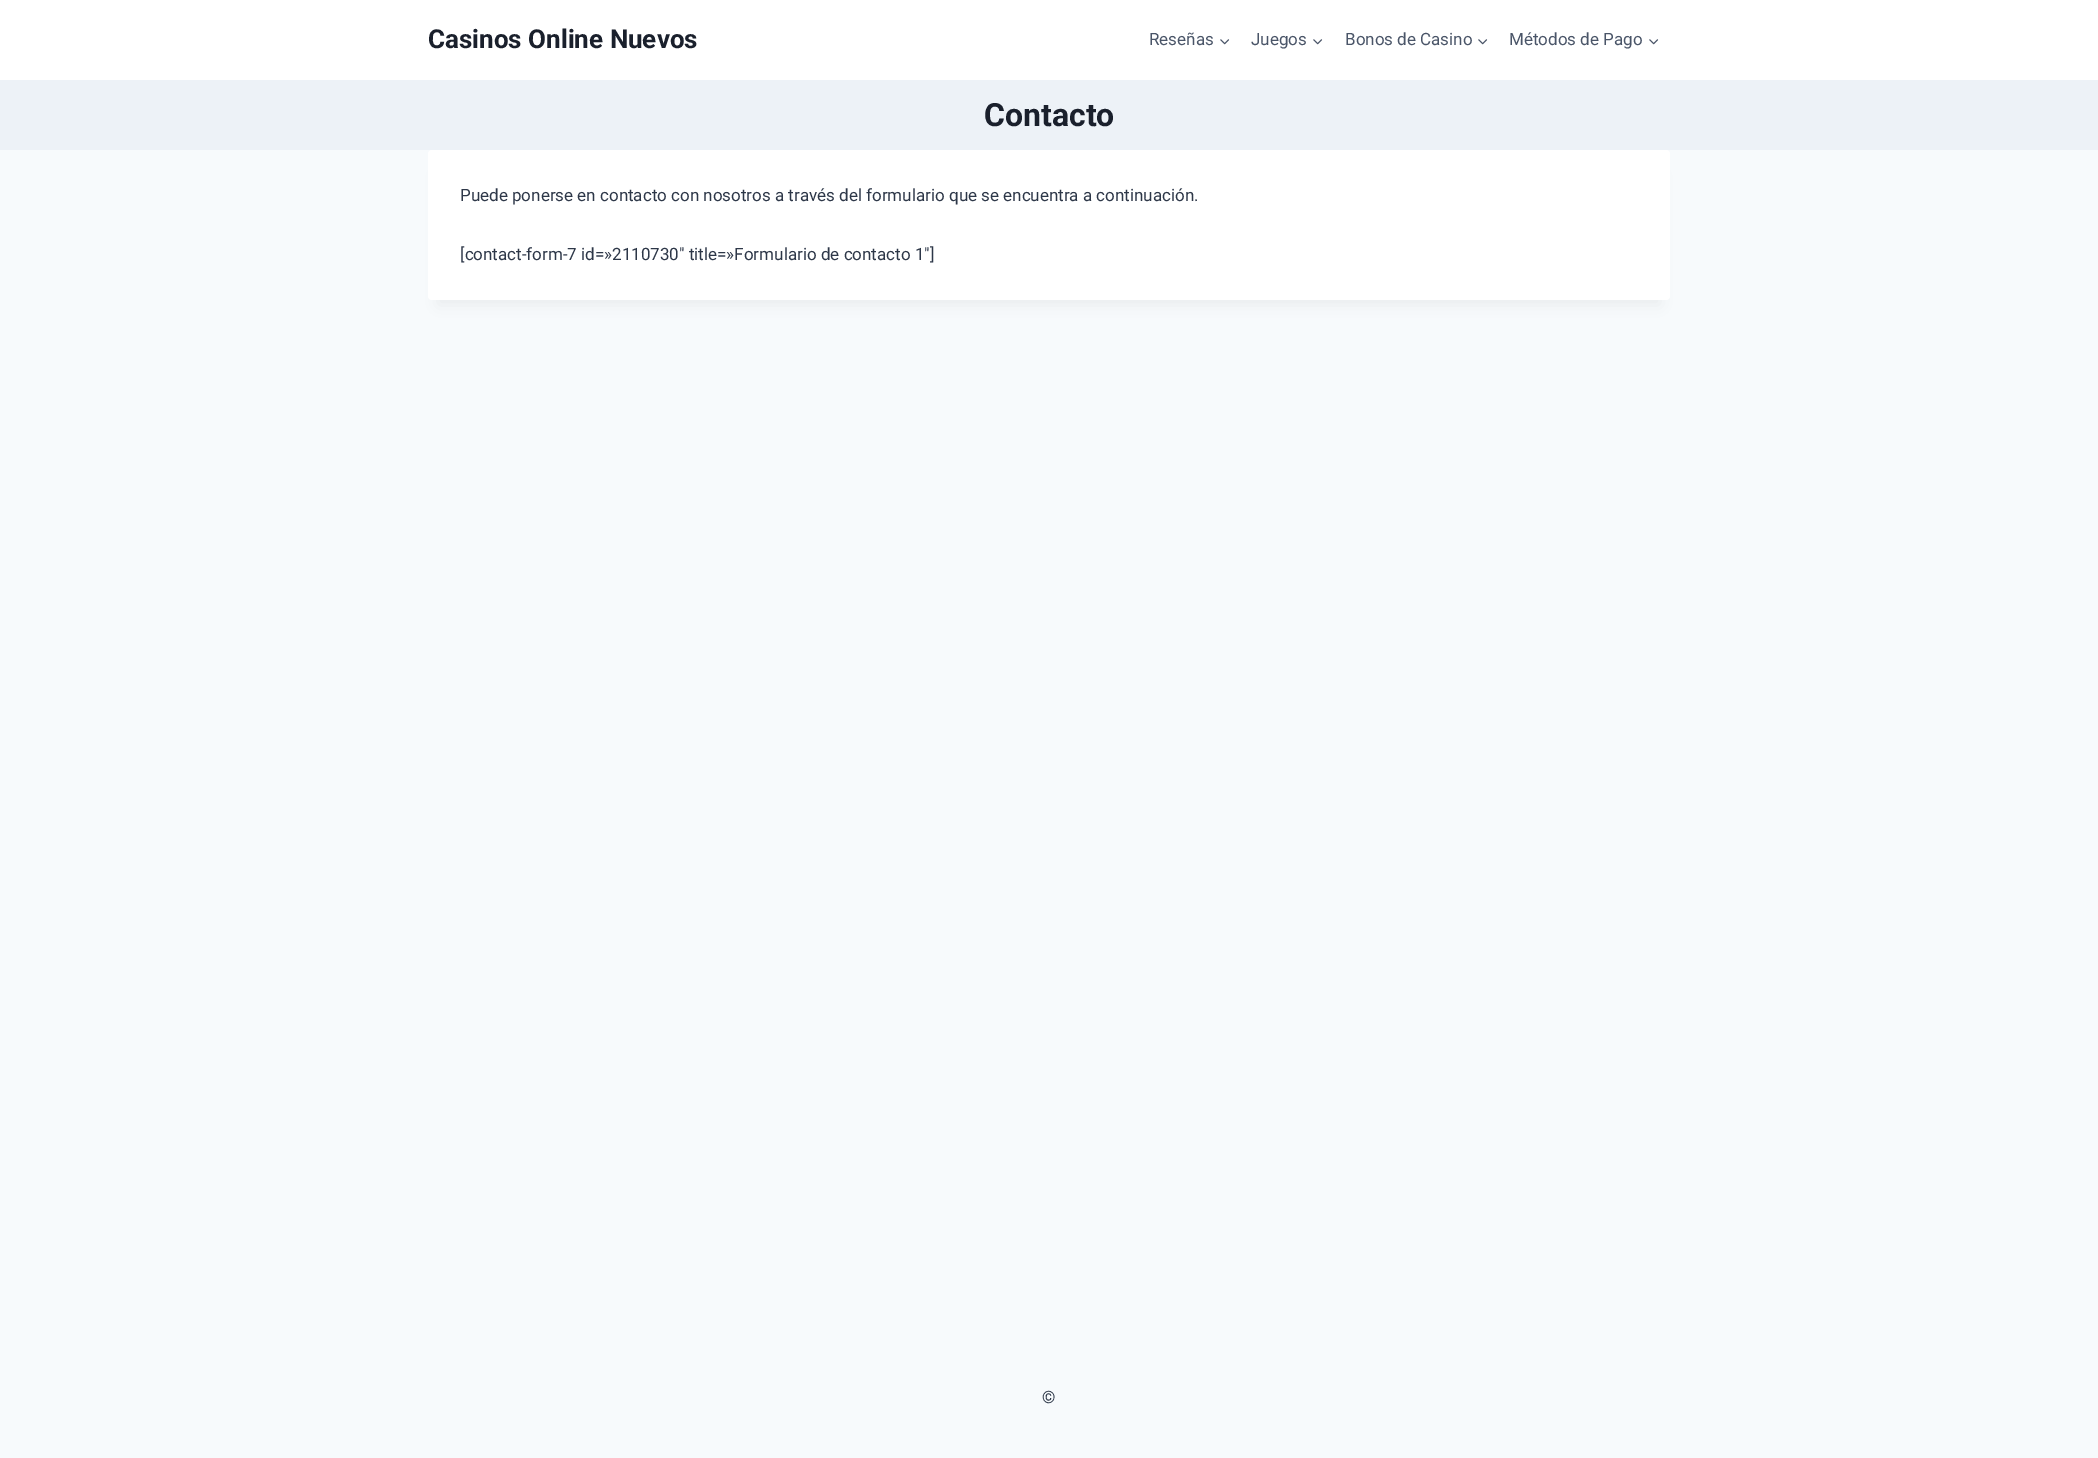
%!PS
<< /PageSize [2098 1458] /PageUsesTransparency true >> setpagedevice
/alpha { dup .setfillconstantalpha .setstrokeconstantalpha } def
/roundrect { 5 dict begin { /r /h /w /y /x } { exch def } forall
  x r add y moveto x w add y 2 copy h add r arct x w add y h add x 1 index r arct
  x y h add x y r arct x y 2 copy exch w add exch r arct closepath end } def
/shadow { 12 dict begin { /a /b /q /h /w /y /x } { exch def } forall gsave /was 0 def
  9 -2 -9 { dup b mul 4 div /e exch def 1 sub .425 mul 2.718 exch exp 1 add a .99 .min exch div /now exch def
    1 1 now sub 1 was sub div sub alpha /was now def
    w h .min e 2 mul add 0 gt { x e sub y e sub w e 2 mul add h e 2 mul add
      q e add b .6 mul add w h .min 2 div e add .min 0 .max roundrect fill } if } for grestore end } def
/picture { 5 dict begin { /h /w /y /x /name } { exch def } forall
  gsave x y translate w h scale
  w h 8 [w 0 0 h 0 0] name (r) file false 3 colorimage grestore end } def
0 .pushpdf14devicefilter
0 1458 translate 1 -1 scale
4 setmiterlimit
0.969 0.98 0.988 setrgbcolor
0 0 2098 1458 rectfill
1 setgray
0 0 2098 80 rectfill
/Roboto-Bold [26 0 0 -26 0 0] selectfont
0.102 0.125 0.173 setrgbcolor
428 48 moveto (Casinos Online Nuevos) show
/Roboto-Regular [17 0 0 -17 0 0] selectfont
0.29 0.333 0.408 setrgbcolor
1149 45 moveto (Reseñas) show
(img1.rgb) 1220 39 10 6 picture
1251 45 moveto (Juegos) show
(img1.rgb) 1313 39 10 6 picture
1345 45 moveto (Bonos de Casino) show
(img1.rgb) 1478 39 10 6 picture
1509 45 moveto (Métodos de Pago) show
(img1.rgb) 1649 39 10 6 picture
0.929 0.949 0.969 setrgbcolor
0 80 2098 70 rectfill
/Roboto-Bold [32 0 0 -32 0 0] selectfont
0.102 0.125 0.173 setrgbcolor
984 126 moveto (Contacto) show
0 setgray
438 175 1222 130 0 7.5 0.05 shadow
1 setgray
428 150 1242 150 4 roundrect fill
/Roboto-Regular [17 0 0 -17 0 0] selectfont
0.176 0.216 0.282 setrgbcolor
460 201 moveto (Puede ponerse en contacto con nosotros a través del formulario que se encuentra a continuación.) show
460 260 moveto ([contact-form-7 id=»2110730″ title=»Formulario de contacto 1″]) show
1042 1403 moveto (©) show
.poppdf14devicefilter showpage
